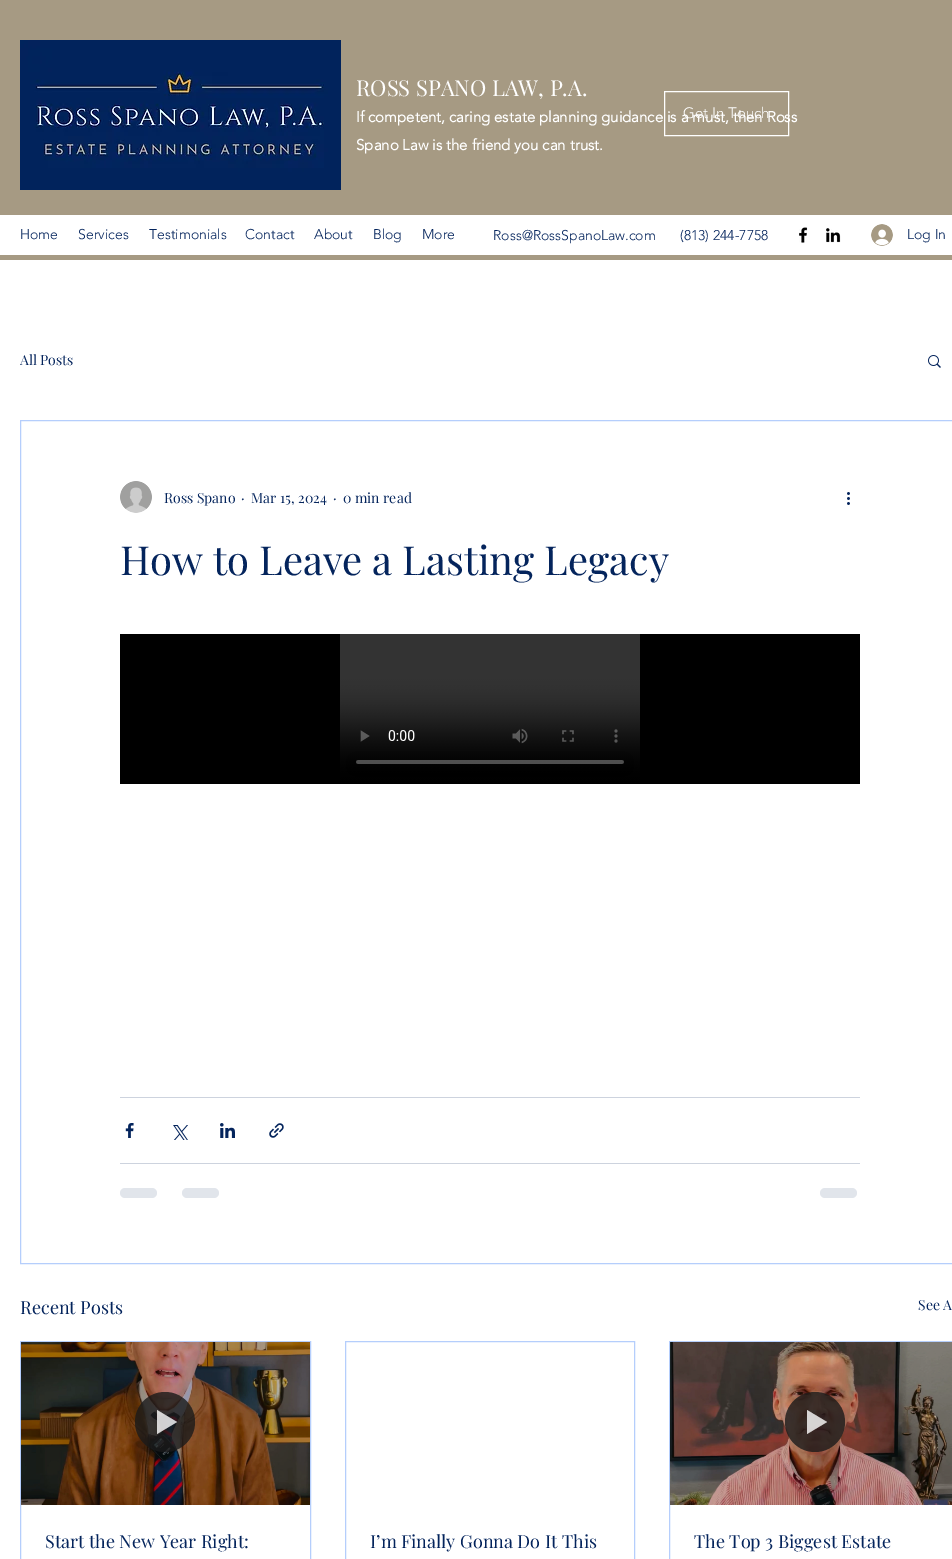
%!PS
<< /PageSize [952 1559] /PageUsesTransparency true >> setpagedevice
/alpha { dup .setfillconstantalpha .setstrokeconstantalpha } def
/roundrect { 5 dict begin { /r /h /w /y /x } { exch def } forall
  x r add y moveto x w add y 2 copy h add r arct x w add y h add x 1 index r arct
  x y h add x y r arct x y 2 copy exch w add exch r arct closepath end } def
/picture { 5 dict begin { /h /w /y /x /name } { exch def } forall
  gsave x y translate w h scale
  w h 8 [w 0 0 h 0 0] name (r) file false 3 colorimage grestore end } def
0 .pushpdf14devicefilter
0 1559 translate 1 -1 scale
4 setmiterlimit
1 setgray
0 0 952 1559 rectfill
0.651 0.604 0.514 setrgbcolor
0 0 952 260 rectfill
(img1.rgb) 20 40 321 150 picture
/PlayfairDisplay-Regular [22 0 0 -22 0 0] selectfont
1 setgray
356 96 moveto (ROSS SPANO LAW, P.A.) show
/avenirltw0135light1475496-Bold [15 0 0 -15 0 0] selectfont
356 122 moveto (If competent, caring estate planning guidance is a must, then Ross) show
356 150 moveto (Spano Law is the friend you can trust.) show
664.5 91.5 124 44 rectstroke
/avenirltw0135light1475496-Light [15 0 0 -15 0 0] selectfont
683 118 moveto (Get In Touch) show
0 215 952 40 rectfill
/avenirltw0135light1475496-Light [14 0 0 -14 0 0] selectfont
0.016 0.141 0.361 setrgbcolor
20 239 moveto (Home) show
78 239 moveto (Services) show
149 239 moveto (Testimonials) show
245 239 moveto (Contact) show
314 239 moveto (About) show
373 239 moveto (Blog) show
422 239 moveto (More) show
493 240 moveto (Ross@RossSpanoLaw.com) show
680 240 moveto (\(813\) 244-7758) show
(img2.rgb) 799 227 9 16 picture
(img3.rgb) 826 228 15 15 picture
(img4.rgb) 871 224 22 22 picture
907 239 moveto (Log In) show
/PlayfairDisplay-Regular [14 0 0 -14 0 0] selectfont
20 365 moveto (All Posts) show
(img5.rgb) 928 355 13 13 picture
0.71 0.808 0.988 setrgbcolor
20.5 420.5 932 843 rectstroke
(img6.rgb) 120 481 32 32 picture
0.016 0.141 0.361 setrgbcolor
164 503 moveto (Ross Spano) show
241 503 moveto (·) show
251 503 moveto (Mar 15, 2024) show
333 503 moveto (·) show
343 503 moveto (0 min read) show
(img7.rgb) 847 492 3 13 picture
/PlayfairDisplay-Regular [40 0 0 -40 0 0] selectfont
120 575 moveto (How to Leave a Lasting Legacy) show
(img8.rgb) 120 634 740 150 picture
0.804 0.827 0.871 setrgbcolor
120 1097 740 1 rectfill
(img9.rgb) 125 1123 9 15 picture
(img10.rgb) 173 1125 15 15 picture
(img11.rgb) 220 1123 15 15 picture
(img12.rgb) 269 1123 15 15 picture
120 1163 740 1 rectfill
0.882 0.898 0.922 setrgbcolor
120 1188 37 10 5 roundrect fill
182 1188 37 10 5 roundrect fill
820 1188 37 10 5 roundrect fill
/PlayfairDisplay-Regular [18 0 0 -18 0 0] selectfont
0.016 0.141 0.361 setrgbcolor
20 1314 moveto (Recent Posts) show
/PlayfairDisplay-Regular [14 0 0 -14 0 0] selectfont
918 1310 moveto (See A) show
0.71 0.808 0.988 setrgbcolor
20.5 1341.5 290 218 rectstroke
(img13.rgb) 21 1342 289 163 picture
0.8 alpha
0.102 setgray
newpath 165 1422 30 0 360 arc closepath fill
1 setgray
newpath 157 1410 moveto 157 1434 lineto 177 1422 lineto closepath fill
/PlayfairDisplay-Regular [18 0 0 -18 0 0] selectfont
1 alpha
0.016 0.141 0.361 setrgbcolor
45 1548 moveto (Start the New Year Right:) show
0.71 0.808 0.988 setrgbcolor
345.5 1341.5 289 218 rectstroke
0.016 0.141 0.361 setrgbcolor
370 1548 moveto (I’m Finally Gonna Do It This) show
0.71 0.808 0.988 setrgbcolor
669.5 1341.5 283 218 rectstroke
(img14.rgb) 670 1342 282 163 picture
0.8 alpha
0.102 setgray
newpath 815 1422 30 0 360 arc closepath fill
1 setgray
newpath 807 1410 moveto 807 1434 lineto 827 1422 lineto closepath fill
1 alpha
0.016 0.141 0.361 setrgbcolor
694 1548 moveto (The Top 3 Biggest Estate) show
.poppdf14devicefilter showpage
